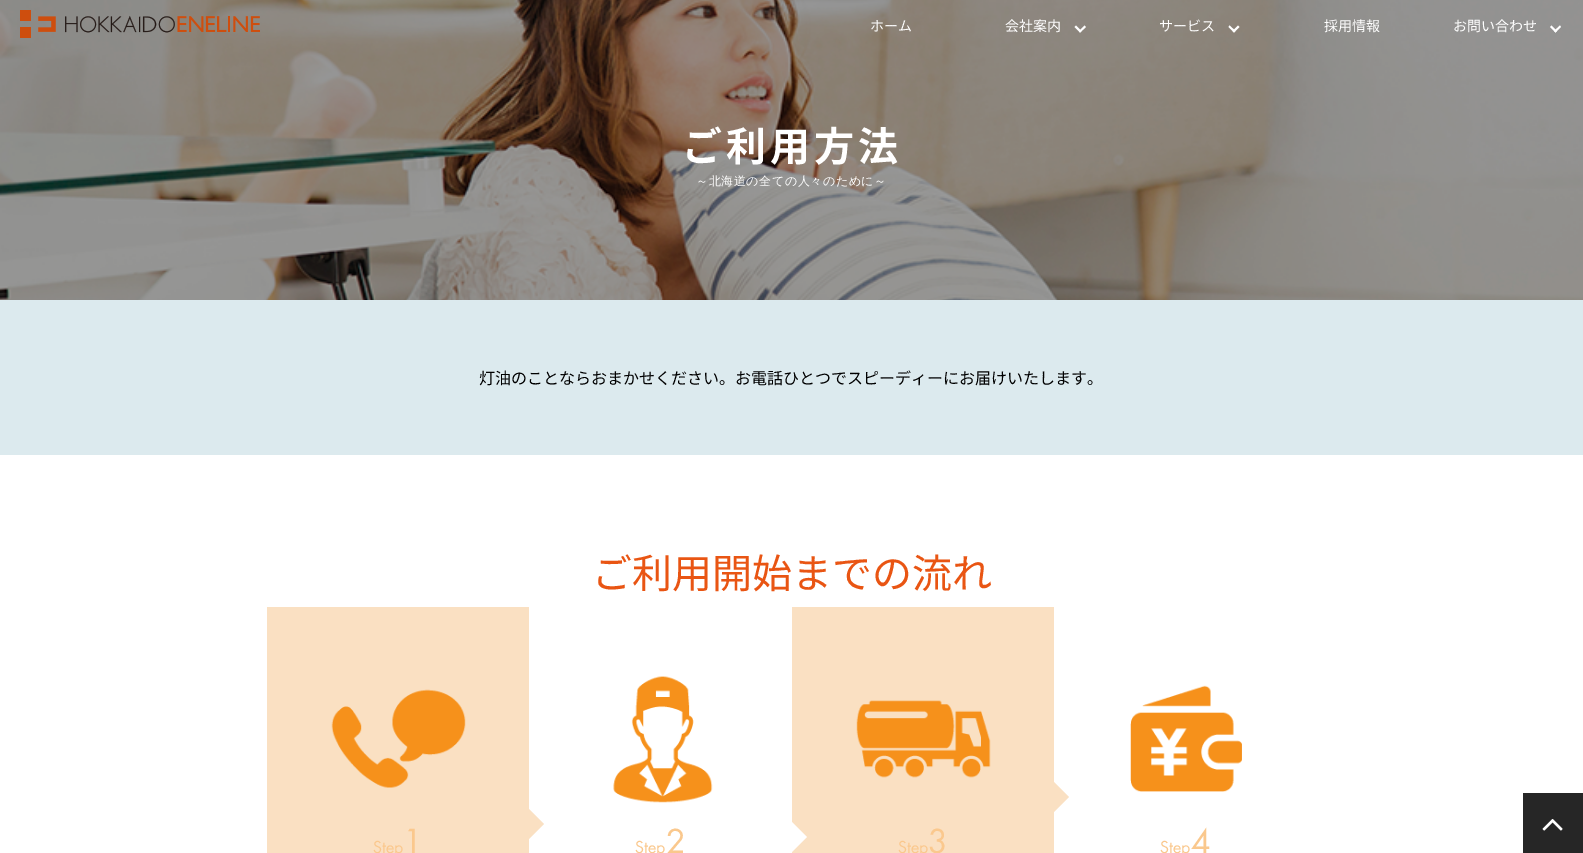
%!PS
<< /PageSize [1583 853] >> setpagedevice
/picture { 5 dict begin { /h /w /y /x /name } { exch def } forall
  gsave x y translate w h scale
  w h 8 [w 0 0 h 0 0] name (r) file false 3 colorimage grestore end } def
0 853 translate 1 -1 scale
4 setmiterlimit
1 setgray
0 0 1583 853 rectfill
(img1.rgb) 0 0 1583 300 picture
(img2.rgb) 20 10 240 28 picture
/NotoSansJP-Regular [14 0 0 -14 0 0] selectfont
870 31 moveto (ホーム) show
1005 31 moveto (会社案内) show
newpath 1084.5 25.5 moveto 1086 27 lineto 1080 32.5 lineto 1079 31 lineto closepath fill
newpath 1076 25.5 moveto 1081.5 31 lineto 1080 32.5 lineto 1074.5 27 lineto closepath fill
1159 31 moveto (サービス) show
newpath 1238 25.5 moveto 1239.5 27 lineto 1234 32.5 lineto 1232.5 31 lineto closepath fill
newpath 1229.5 25.5 moveto 1235.5 31 lineto 1234 32.5 lineto 1228.5 27 lineto closepath fill
1324 31 moveto (採用情報) show
1453 31 moveto (お問い合わせ) show
newpath 1560 25.5 moveto 1561 27 lineto 1555.5 32.5 lineto 1554 31 lineto closepath fill
newpath 1551.5 25.5 moveto 1557 31 lineto 1555.5 32.5 lineto 1550 27 lineto closepath fill
/NotoSansJP-Bold [40 0 0 -40 0 0] selectfont
682 161 moveto 4 0 (ご利用方法) ashow
/WenQuanYiZenHei-Medium [12 0 0 -12 0 0] selectfont
696 185 moveto 0.6 0 (～北海道の全ての人々のために～) ashow
0.863 0.918 0.933 setrgbcolor
0 300 1583 155 rectfill
/NotoSansJP-Regular [16 0 0 -16 0 0] selectfont
0 setgray
479 384 moveto (灯油のことならおまかせください。お電話ひとつでスピーディーにお届けいたします。) show
/NotoSansJP-Regular [40 0 0 -40 0 0] selectfont
0.914 0.333 0.075 setrgbcolor
592 588 moveto (ご利用開始までの流れ) show
0.98 0.878 0.761 setrgbcolor
267 607 262 246 rectfill
(img3.rgb) 331 689 135 99 picture
/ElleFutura-Regular [16 0 0 -16 0 0] selectfont
0.98 0.784 0.553 setrgbcolor
373 853 moveto (Step) show
/ElleFutura-Regular [32 0 0 -32 0 0] selectfont
403 853 moveto (1) show
0.98 0.878 0.761 setrgbcolor
newpath 524 844 moveto 524 804 lineto 544 824 lineto closepath fill
(img4.rgb) 613 676 100 127 picture
/ElleFutura-Regular [16 0 0 -16 0 0] selectfont
0.98 0.784 0.553 setrgbcolor
635 853 moveto (Step) show
/ElleFutura-Regular [32 0 0 -32 0 0] selectfont
666 853 moveto (2) show
0.98 0.878 0.761 setrgbcolor
792 607 262 246 rectfill
1 setgray
newpath 787 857 moveto 787 817 lineto 807 837 lineto closepath fill
(img5.rgb) 856 700 135 78 picture
0.98 0.878 0.761 setrgbcolor
newpath 1049 817 moveto 1049 777 lineto 1069 797 lineto closepath fill
/ElleFutura-Regular [16 0 0 -16 0 0] selectfont
0.98 0.784 0.553 setrgbcolor
898 853 moveto (Step) show
/ElleFutura-Regular [32 0 0 -32 0 0] selectfont
928 853 moveto (3) show
(img6.rgb) 1130 685 112 107 picture
/ElleFutura-Regular [16 0 0 -16 0 0] selectfont
1160 853 moveto (Step) show
/ElleFutura-Regular [32 0 0 -32 0 0] selectfont
1191 853 moveto (4) show
0.149 setgray
1523 793 60 60 rectfill
(img7.rgb) 1542 819 21 12 picture
showpage
